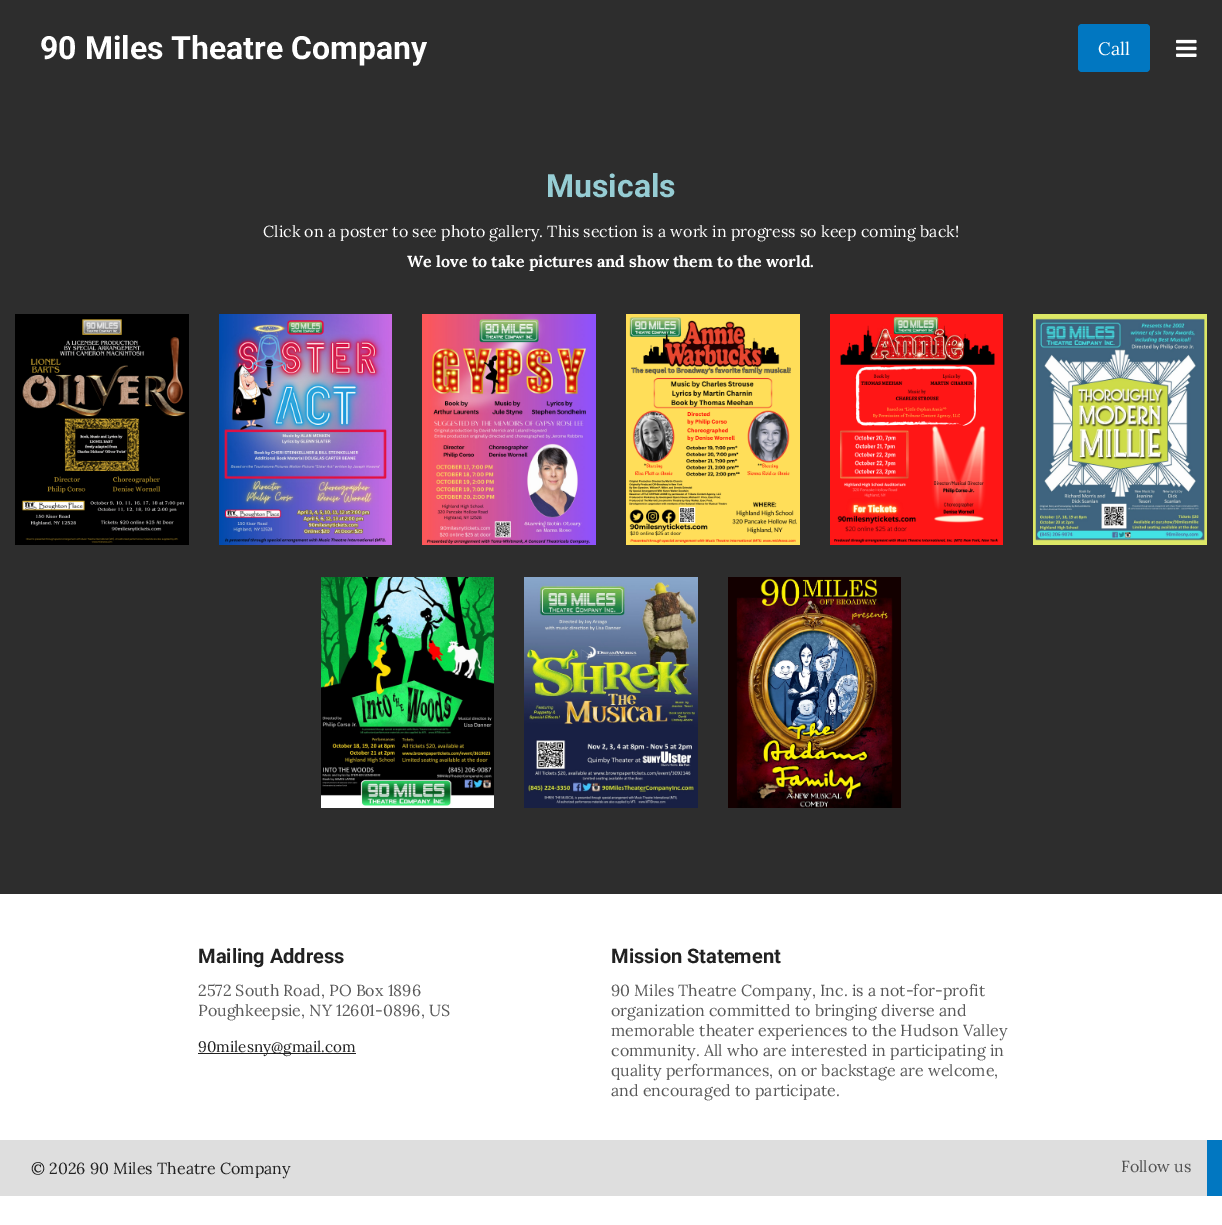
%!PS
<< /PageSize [1222 1225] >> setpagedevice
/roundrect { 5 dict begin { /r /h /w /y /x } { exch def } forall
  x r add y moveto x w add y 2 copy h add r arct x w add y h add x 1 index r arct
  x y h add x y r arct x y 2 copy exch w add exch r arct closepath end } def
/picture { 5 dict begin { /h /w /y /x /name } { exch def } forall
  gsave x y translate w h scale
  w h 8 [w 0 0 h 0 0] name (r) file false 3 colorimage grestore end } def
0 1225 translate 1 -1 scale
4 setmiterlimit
1 setgray
0 0 1222 1225 rectfill
0.176 setgray
0 0 1222 894 rectfill
/Roboto-Bold [32 0 0 -32 0 0] selectfont
1 setgray
40 59 moveto (90 Miles Theatre Company) show
0.004 0.467 0.757 setrgbcolor
1078 24 72 48 4 roundrect fill
/Lora-Regular [18 0 0 -18 0 0] selectfont
1 setgray
1098 55 moveto (Call) show
(img1.rgb) 1176 39 21 18 picture
/Roboto-Bold [32 0 0 -32 0 0] selectfont
0.588 0.804 0.831 setrgbcolor
546 197 moveto (Musicals) show
/Lora-Regular [16 0 0 -16 0 0] selectfont
1 setgray
263 237 moveto (Click on a poster to see photo gallery. This section is a work in progress so keep coming back!) show
/Lora-Bold [16 0 0 -16 0 0] selectfont
407 267 moveto (We love to take pictures and show them to the world.) show
(img2.rgb) 15 314 174 231 picture
(img3.rgb) 219 314 173 231 picture
(img4.rgb) 422 314 174 231 picture
(img5.rgb) 626 314 174 231 picture
(img6.rgb) 830 314 173 231 picture
(img7.rgb) 1033 314 174 231 picture
(img8.rgb) 321 577 173 231 picture
(img9.rgb) 524 577 174 231 picture
(img10.rgb) 728 577 173 231 picture
/Roboto-Bold [20 0 0 -20 0 0] selectfont
0.129 setgray
198 963 moveto (Mailing Address) show
/Lora-Regular [16 0 0 -16 0 0] selectfont
0.349 setgray
198 996 moveto (2572 South Road, PO Box 1896) show
198 1016 moveto (Poughkeepsie, NY 12601-0896, US) show
0.129 setgray
198 1053 158 1 rectfill
/Lora-Regular [15.25 0 0 -15.25 0 0] selectfont
198 1052 moveto (90milesny@gmail.com) show
/Roboto-Bold [20 0 0 -20 0 0] selectfont
611 963 moveto (Mission Statement) show
/Lora-Regular [16 0 0 -16 0 0] selectfont
0.349 setgray
611 996 moveto (90 Miles Theatre Company, Inc. is a not-for-profit) show
611 1016 moveto (organization committed to bringing diverse and) show
611 1036 moveto (memorable theater experiences to the Hudson Valley) show
611 1056 moveto (community. All who are interested in participating in) show
611 1076 moveto (quality performances, on or backstage are welcome,) show
611 1096 moveto (and encouraged to participate.) show
0.871 setgray
0 1140 1207 56 rectfill
0.129 setgray
31 1174 moveto (© 2026 90 Miles Theatre Company) show
0.314 setgray
1121 1172 moveto (Follow us) show
0.004 0.467 0.757 setrgbcolor
1207 1140 15 56 rectfill
showpage
